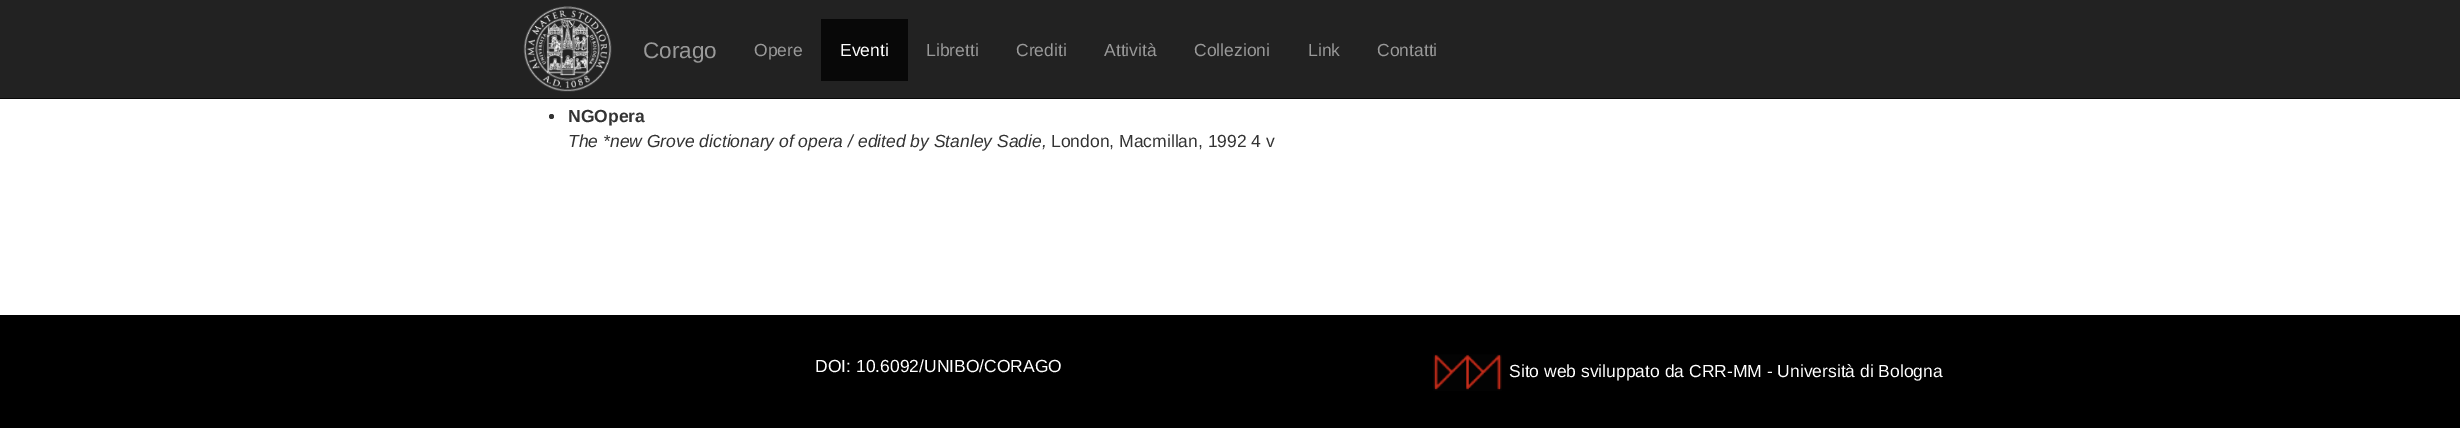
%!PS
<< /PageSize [2460 428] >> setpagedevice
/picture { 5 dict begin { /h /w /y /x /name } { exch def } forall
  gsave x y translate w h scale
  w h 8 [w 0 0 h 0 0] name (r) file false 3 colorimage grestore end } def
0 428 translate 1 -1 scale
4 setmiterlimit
1 setgray
0 0 2460 428 rectfill
0.133 setgray
0 0 2460 98 rectfill
0.031 setgray
0 98 2460 1 rectfill
(img1.rgb) 523 6 89 86 picture
/LiberationSans-Regular [22.5 0 0 -22.5 0 0] selectfont
0.6 setgray
643 58 moveto (Corago) show
/LiberationSans-Regular [17.5 0 0 -17.5 0 0] selectfont
754 56 moveto (Opere) show
0.031 setgray
821 19 87 62 rectfill
1 setgray
840 56 moveto (Eventi) show
0.6 setgray
926 56 moveto (Libretti) show
1016 56 moveto (Crediti) show
1104 56 moveto (Attività) show
1194 56 moveto (Collezioni) show
1308 56 moveto (Link) show
1377 56 moveto (Contatti) show
0.2 setgray
newpath 551.5 116.5 2.5 0 360 arc closepath fill
/LiberationSans-Bold [17.5 0 0 -17.5 0 0] selectfont
568 122 moveto (NGOpera) show
/LiberationSans-Italic [17.5 0 0 -17.5 0 0] selectfont
568 147 moveto (The *new Grove dictionary of opera / edited by Stanley Sadie,) show
/LiberationSans-Regular [17.5 0 0 -17.5 0 0] selectfont
1051 147 moveto (London, Macmillan, 1992 4 v) show
0 setgray
0 315 2460 113 rectfill
1 setgray
815 372 moveto (DOI: 10.6092/UNIBO/CORAGO) show
(img2.rgb) 1433 354 69 37 picture
1509 377 moveto (Sito web sviluppato da CRR-MM - Università di Bologna) show
showpage
